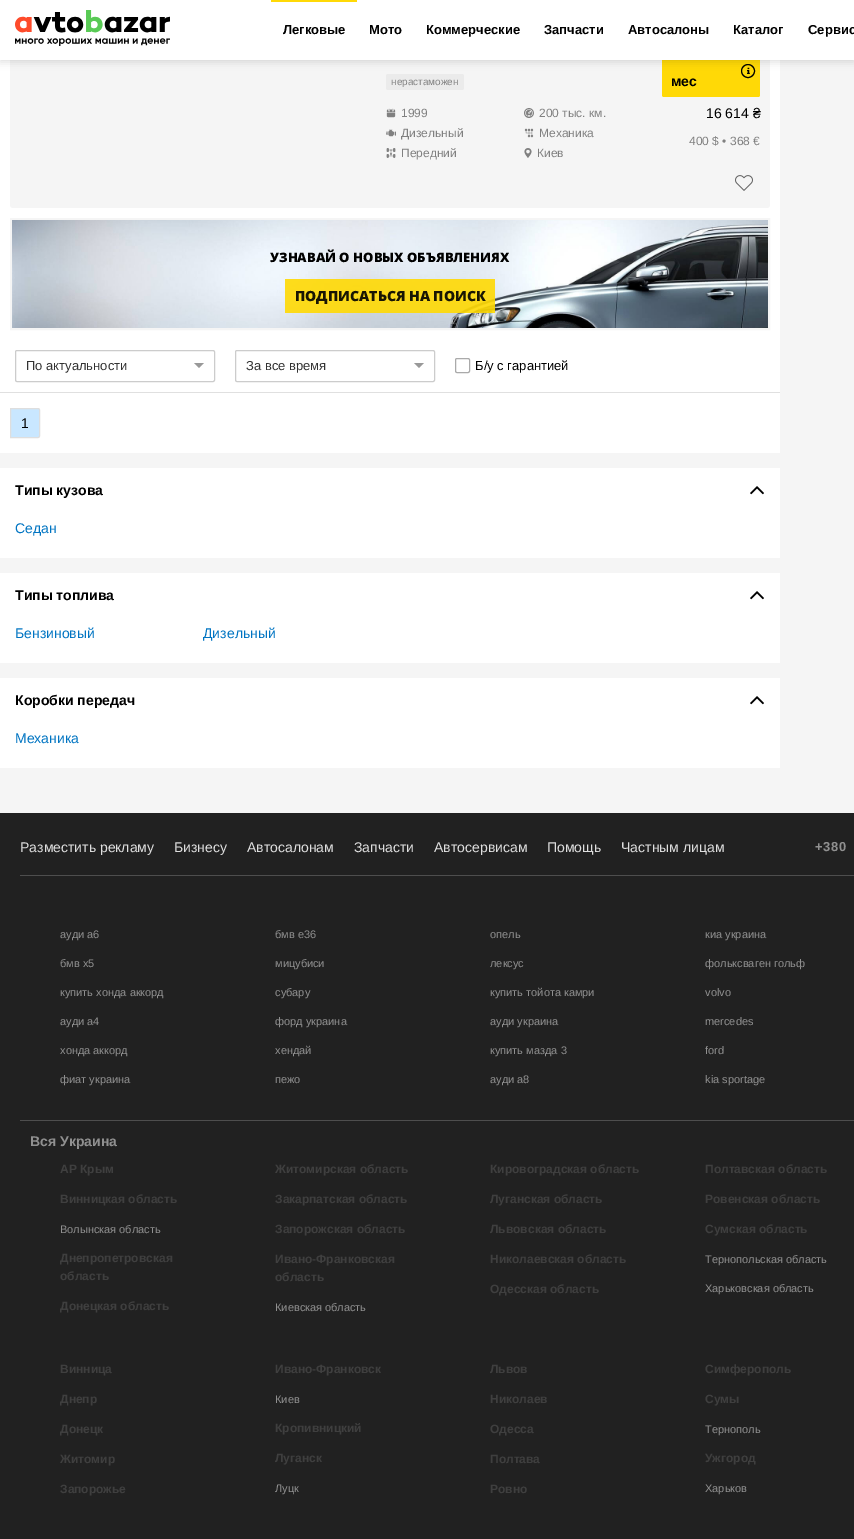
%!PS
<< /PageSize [854 1539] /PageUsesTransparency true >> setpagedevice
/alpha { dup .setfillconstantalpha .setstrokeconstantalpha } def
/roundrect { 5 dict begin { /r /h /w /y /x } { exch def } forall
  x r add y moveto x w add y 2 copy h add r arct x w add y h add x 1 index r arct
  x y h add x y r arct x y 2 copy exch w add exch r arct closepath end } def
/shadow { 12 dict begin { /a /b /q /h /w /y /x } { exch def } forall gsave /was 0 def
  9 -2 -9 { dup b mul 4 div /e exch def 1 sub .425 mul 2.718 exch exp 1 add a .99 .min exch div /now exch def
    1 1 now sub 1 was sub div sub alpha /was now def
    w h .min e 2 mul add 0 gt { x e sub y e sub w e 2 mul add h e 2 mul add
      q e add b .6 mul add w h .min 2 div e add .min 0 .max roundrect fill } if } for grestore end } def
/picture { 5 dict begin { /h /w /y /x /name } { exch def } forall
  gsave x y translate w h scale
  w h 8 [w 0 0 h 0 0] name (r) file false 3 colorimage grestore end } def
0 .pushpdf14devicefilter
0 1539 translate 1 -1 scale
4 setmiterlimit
0.961 setgray
0 0 854 1539 rectfill
1 setgray
0 60 780 332 rectfill
0.961 setgray
10 35 760 173 3 roundrect fill
0.922 setgray
386 74 78 16 2 roundrect fill
1 0.851 0.024 setrgbcolor
662 45 98 52 2 roundrect fill
0 setgray
newpath 748 71 6.5 0 360 arc closepath stroke
(img8.rgb) 747 67 3 7 picture
0 2 854 60 0 4 0.12 shadow
1 setgray
0 0 854 60 rectfill
(img1.rgb) 15 10 155 36 picture
1 0.851 0.024 setrgbcolor
271 0 86 2 rectfill
/LiberationSans-Bold [13 0 0 -13 0 0] selectfont
0 setgray
283 34 moveto (Легковые) show
369 34 moveto (Мото) show
426 34 moveto (Коммерческие) show
544 34 moveto (Запчасти) show
628 34 moveto (Автосалоны) show
733 34 moveto (Каталог) show
808 34 moveto (Сервис) show
/LiberationSans-Regular [10 0 0 -10 0 0] selectfont
0.502 setgray
391 85 moveto (нерастаможен) show
(img2.rgb) 386 108 10 10 picture
/LiberationSans-Regular [12 0 0 -12 0 0] selectfont
401 117 moveto (1999) show
(img3.rgb) 386 129 10 8 picture
401 137 moveto (Дизельный) show
(img4.rgb) 386 148 10 10 picture
401 157 moveto (Передний) show
(img5.rgb) 524 108 10 10 picture
539 117 moveto (200 тыс. км.) show
(img6.rgb) 524 128 10 10 picture
539 137 moveto (Механика) show
(img7.rgb) 524 148 8 10 picture
537 157 moveto (Киев) show
/LiberationSans-Bold [14 0 0 -14 0 0] selectfont
0 setgray
671 86 moveto (мес) show
/LiberationSans-Regular [14 0 0 -14 0 0] selectfont
706 118 moveto (16 614 ₴) show
/LiberationSans-Regular [12 0 0 -12 0 0] selectfont
0.502 setgray
689 145 moveto (400 $ • 368 €) show
(img9.rgb) 735 175 18 16 picture
0.961 setgray
2 setlinewidth
11 219 758 110 rectstroke
(img10.rgb) 12 220 756 108 picture
/OpenSans-ExtraBold [13 0 0 -13 0 0] selectfont
0 setgray
270 262 moveto (УЗНАВАЙ О НОВЫХ ОБЪЯВЛЕНИЯХ) show
0.9 alpha
1 0.851 0.012 setrgbcolor
285 279 210 34 rectfill
/OpenSans-ExtraBold [14 0 0 -14 0 0] selectfont
1 alpha
0.098 0.086 0.012 setrgbcolor
295 301 moveto (ПОДПИСАТЬСЯ НА ПОИСК) show
0.878 setgray
0 392 780 1 rectfill
0.8 setgray
1 setlinewidth
15.5 350.5 199 31 1.5 roundrect stroke
/LiberationSans-Regular [13 0 0 -13 0 0] selectfont
0.2 setgray
26 370 moveto (По актуальности) show
0.6 setgray
newpath 194 363 moveto 204 363 lineto 199 368 lineto closepath fill
0.8 setgray
235.5 350.5 199 31 1.5 roundrect stroke
0.2 setgray
246 370 moveto (За все время) show
0.6 setgray
newpath 414 363 moveto 424 363 lineto 419 368 lineto closepath fill
0.667 setgray
455.5 358.5 14 14 1.5 roundrect stroke
0 setgray
475 370 moveto (Б/у с гарантией) show
1 setgray
0 393 780 60 rectfill
0.788 0.906 1 setrgbcolor
newpath 10.5 408.5 moveto 38 408.5 lineto 39 408.5 39.5 409 39.5 410 curveto 39.5 436 lineto 39.5 437 39 437.5 38 437.5 curveto 10.5 437.5 lineto closepath gsave fill grestore
0.871 setgray
stroke
/LiberationSans-Regular [14 0 0 -14 0 0] selectfont
0 setgray
21 428 moveto (1) show
1 setgray
0 468 780 90 rectfill
/LiberationSans-Bold [14 0 0 -14 0 0] selectfont
0 setgray
15 495 moveto (Типы кузова) show
(img11.rgb) 750 486 14 9 picture
/LiberationSans-Regular [14 0 0 -14 0 0] selectfont
0 0.455 0.761 setrgbcolor
15 533 moveto (Седан) show
1 setgray
0 573 780 90 rectfill
/LiberationSans-Bold [14 0 0 -14 0 0] selectfont
0 setgray
15 600 moveto (Типы топлива) show
(img11.rgb) 750 591 14 9 picture
/LiberationSans-Regular [14 0 0 -14 0 0] selectfont
0 0.455 0.761 setrgbcolor
15 638 moveto (Бензиновый) show
203 638 moveto (Дизельный) show
1 setgray
0 678 780 90 rectfill
/LiberationSans-Bold [14 0 0 -14 0 0] selectfont
0 setgray
15 705 moveto (Коробки передач) show
(img11.rgb) 750 696 14 9 picture
/LiberationSans-Regular [14 0 0 -14 0 0] selectfont
0 0.455 0.761 setrgbcolor
15 743 moveto (Механика) show
0.129 setgray
0 813 854 726 rectfill
0.871 setgray
20 852 moveto (Разместить рекламу) show
174 852 moveto (Бизнесу) show
247 852 moveto (Автосалонам) show
354 852 moveto (Запчасти) show
434 852 moveto (Автосервисам) show
547 852 moveto (Помощь) show
621 852 moveto (Частным лицам) show
/LiberationSans-Bold [13 0 0 -13 0 0] selectfont
0.565 setgray
815 851 moveto 0.5 0 (+380) ashow
0.306 setgray
20 875 834 1 rectfill
/LiberationSans-Regular [11 0 0 -11 0 0] selectfont
0.565 setgray
60 938 moveto (ауди а6) show
60 967 moveto (бмв х5) show
60 996 moveto (купить хонда аккорд) show
60 1025 moveto (ауди а4) show
60 1054 moveto (хонда аккорд) show
60 1083 moveto (фиат украина) show
275 938 moveto (бмв е36) show
275 967 moveto (мицубиси) show
275 996 moveto (субару) show
275 1025 moveto (форд украина) show
275 1054 moveto (хендай) show
275 1083 moveto (пежо) show
490 938 moveto (опель) show
490 967 moveto (лексус) show
490 996 moveto (купить тойота камри) show
490 1025 moveto (ауди украина) show
490 1054 moveto (купить мазда 3) show
490 1083 moveto (ауди а8) show
705 938 moveto (киа украина) show
705 967 moveto (фольксваген гольф) show
705 996 moveto (volvo) show
705 1025 moveto (mercedes) show
705 1054 moveto (ford) show
705 1083 moveto (kia sportage) show
0.306 setgray
20 1120 834 1 rectfill
/LiberationSans-Bold [14 0 0 -14 0 0] selectfont
0.565 setgray
30 1146 moveto (Вся Украина) show
/LiberationSans-Bold [12 0 0 -12 0 0] selectfont
0.247 setgray
60 1173 moveto (АР Крым) show
60 1203 moveto (Винницкая область) show
/LiberationSans-Regular [11 0 0 -11 0 0] selectfont
0.565 setgray
60 1233 moveto (Волынская область) show
/LiberationSans-Bold [12 0 0 -12 0 0] selectfont
0.247 setgray
60 1262 moveto (Днепропетровская) show
60 1280 moveto (область) show
60 1310 moveto (Донецкая область) show
275 1173 moveto (Житомирская область) show
275 1203 moveto (Закарпатская область) show
275 1233 moveto (Запорожская область) show
275 1263 moveto (Ивано-Франковская) show
275 1281 moveto (область) show
/LiberationSans-Regular [11 0 0 -11 0 0] selectfont
0.565 setgray
275 1311 moveto (Киевская область) show
/LiberationSans-Bold [12 0 0 -12 0 0] selectfont
0.247 setgray
490 1173 moveto (Кировоградская область) show
490 1203 moveto (Луганская область) show
490 1233 moveto (Львовская область) show
490 1263 moveto (Николаевская область) show
490 1293 moveto (Одесская область) show
705 1173 moveto (Полтавская область) show
705 1203 moveto (Ровенская область) show
705 1233 moveto (Сумская область) show
/LiberationSans-Regular [11 0 0 -11 0 0] selectfont
0.565 setgray
705 1263 moveto (Тернопольская область) show
705 1292 moveto (Харьковская область) show
/LiberationSans-Bold [12 0 0 -12 0 0] selectfont
0.247 setgray
60 1373 moveto (Винница) show
60 1403 moveto (Днепр) show
60 1433 moveto (Донецк) show
60 1463 moveto (Житомир) show
60 1493 moveto (Запорожье) show
275 1373 moveto (Ивано-Франковск) show
/LiberationSans-Regular [11 0 0 -11 0 0] selectfont
0.565 setgray
275 1403 moveto (Киев) show
/LiberationSans-Bold [12 0 0 -12 0 0] selectfont
0.247 setgray
275 1432 moveto (Кропивницкий) show
275 1462 moveto (Луганск) show
/LiberationSans-Regular [11 0 0 -11 0 0] selectfont
0.565 setgray
275 1492 moveto (Луцк) show
/LiberationSans-Bold [12 0 0 -12 0 0] selectfont
0.247 setgray
490 1373 moveto (Львов) show
490 1403 moveto (Николаев) show
490 1433 moveto (Одесса) show
490 1463 moveto (Полтава) show
490 1493 moveto (Ровно) show
705 1373 moveto (Симферополь) show
705 1403 moveto (Сумы) show
/LiberationSans-Regular [11 0 0 -11 0 0] selectfont
0.565 setgray
705 1433 moveto (Тернополь) show
/LiberationSans-Bold [12 0 0 -12 0 0] selectfont
0.247 setgray
705 1462 moveto (Ужгород) show
/LiberationSans-Regular [11 0 0 -11 0 0] selectfont
0.565 setgray
705 1492 moveto (Харьков) show
.poppdf14devicefilter showpage
